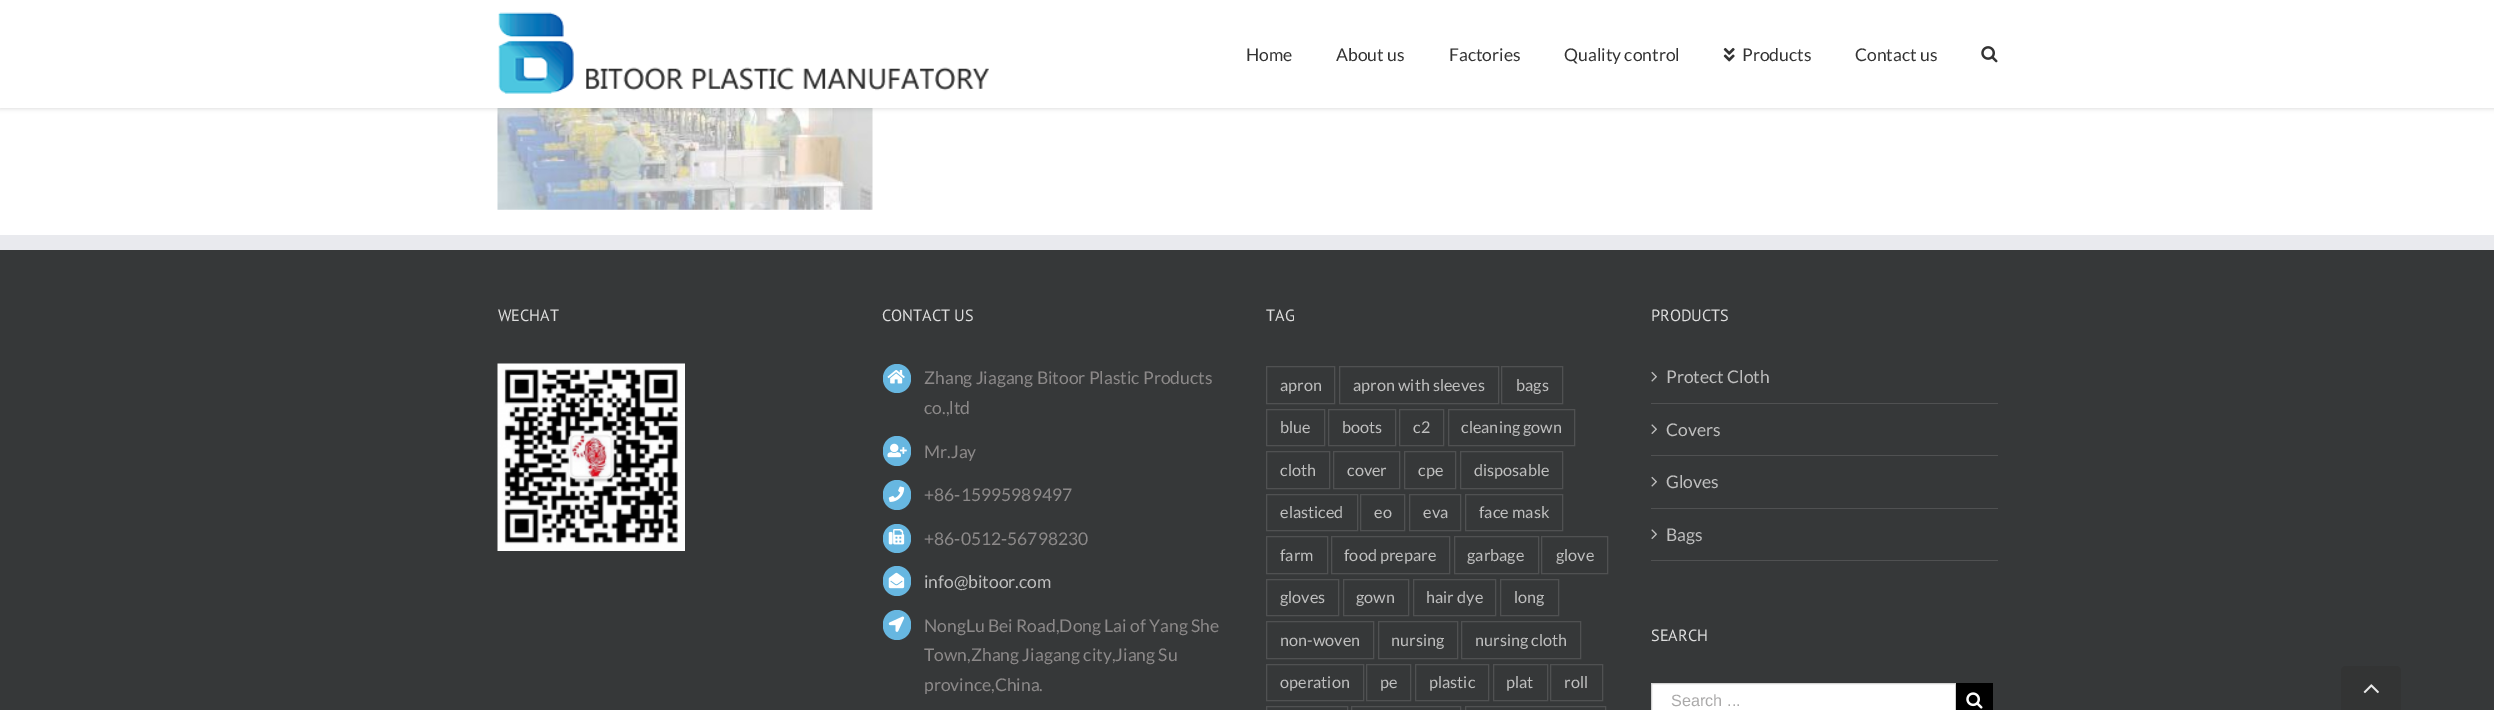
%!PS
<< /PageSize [2494 710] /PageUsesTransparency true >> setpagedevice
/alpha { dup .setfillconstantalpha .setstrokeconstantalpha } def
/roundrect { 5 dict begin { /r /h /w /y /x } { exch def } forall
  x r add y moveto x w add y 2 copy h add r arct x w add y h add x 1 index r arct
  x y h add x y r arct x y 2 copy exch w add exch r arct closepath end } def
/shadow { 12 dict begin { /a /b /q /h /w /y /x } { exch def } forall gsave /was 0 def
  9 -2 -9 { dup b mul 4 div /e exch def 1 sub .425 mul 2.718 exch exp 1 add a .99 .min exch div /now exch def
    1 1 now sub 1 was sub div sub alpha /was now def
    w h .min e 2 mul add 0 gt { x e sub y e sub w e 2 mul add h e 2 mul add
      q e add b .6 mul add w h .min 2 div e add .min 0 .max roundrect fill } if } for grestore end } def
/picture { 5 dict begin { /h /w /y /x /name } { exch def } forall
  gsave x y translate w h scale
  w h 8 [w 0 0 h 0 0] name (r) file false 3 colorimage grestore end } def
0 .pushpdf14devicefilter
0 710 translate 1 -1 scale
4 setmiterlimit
1 setgray
0 0 2494 710 rectfill
(img4.rgb) 497 108 376 102 picture
0 setgray
0 1 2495 108 0 2 0.12 shadow
1 setgray
0 0 2494 108 rectfill
(img1.rgb) 498 12 491 82 picture
/Lato-Regular [17.5 0 0 -17.5 0 0] selectfont
0.2 setgray
1246 61 moveto (Home) show
1336 61 moveto (About us) show
1449 61 moveto (Factories) show
1564 61 moveto (Quality control) show
(img2.rgb) 1723 47 12 15 picture
1742 61 moveto (Products) show
1855 61 moveto (Contact us) show
(img3.rgb) 1981 46 17 17 picture
0.212 0.22 0.224 setrgbcolor
0 250 2494 460 rectfill
0.914 0.918 0.933 setrgbcolor
0 235 2494 15 rectfill
/PTSans-Regular [16.25 0 0 -16.25 0 0] selectfont
0.867 setgray
498 321 moveto (WECHAT) show
(img5.rgb) 497 363 188 188 picture
882 321 moveto (CONTACT US) show
0.404 0.718 0.882 setrgbcolor
883 364 28 29 14 roundrect fill
(img6.rgb) 887 370 18 14 picture
/Lato-Regular [17.5 0 0 -17.5 0 0] selectfont
0.549 0.537 0.537 setrgbcolor
924 384 moveto (Zhang Jiagang Bitoor Plastic Products) show
924 414 moveto (co.,ltd) show
0.404 0.718 0.882 setrgbcolor
883 436 28 30 14 roundrect fill
(img7.rgb) 887 443 20 15 picture
0.549 0.537 0.537 setrgbcolor
924 458 moveto (Mr.Jay) show
0.404 0.718 0.882 setrgbcolor
883 480 28 30 14 roundrect fill
(img8.rgb) 888 486 17 16 picture
0.549 0.537 0.537 setrgbcolor
924 501 moveto (+86-15995989497) show
0.404 0.718 0.882 setrgbcolor
883 524 28 29 14 roundrect fill
(img9.rgb) 888 529 17 16 picture
0.549 0.537 0.537 setrgbcolor
924 545 moveto (+86-0512-56798230) show
0.404 0.718 0.882 setrgbcolor
883 566 28 30 14 roundrect fill
(img10.rgb) 888 572 17 17 picture
0.749 setgray
924 588 moveto (info@bitoor.com) show
0.404 0.718 0.882 setrgbcolor
883 610 28 30 14 roundrect fill
(img11.rgb) 888 616 17 16 picture
0.549 0.537 0.537 setrgbcolor
924 632 moveto (NongLu Bei Road,Dong Lai of Yang She) show
924 661 moveto (Town,Zhang Jiagang city,Jiang Su) show
924 691 moveto (province,China.) show
/PTSans-Regular [16.25 0 0 -16.25 0 0] selectfont
0.867 setgray
1266 321 moveto (TAG) show
0.314 0.318 0.322 setrgbcolor
1266.5 366.5 68 37 rectstroke
/Lato-Regular [16.25 0 0 -16.25 0 0] selectfont
0.749 setgray
1280 391 moveto (apron) show
0.314 0.318 0.322 setrgbcolor
1339.5 366.5 159 37 rectstroke
0.749 setgray
1353 391 moveto (apron with sleeves) show
0.314 0.318 0.322 setrgbcolor
1501.5 366.5 61 37 rectstroke
0.749 setgray
1516 391 moveto (bags) show
0.314 0.318 0.322 setrgbcolor
1266.5 409.5 58 36 rectstroke
0.749 setgray
1280 433 moveto (blue) show
0.314 0.318 0.322 setrgbcolor
1328.5 409.5 67 36 rectstroke
0.749 setgray
1342 433 moveto (boots) show
0.314 0.318 0.322 setrgbcolor
1399.5 409.5 44 36 rectstroke
0.749 setgray
1413 433 moveto (c2) show
0.314 0.318 0.322 setrgbcolor
1448.5 409.5 126 36 rectstroke
0.749 setgray
1461 433 moveto (cleaning gown) show
0.314 0.318 0.322 setrgbcolor
1266.5 451.5 63 37 rectstroke
0.749 setgray
1280 476 moveto (cloth) show
0.314 0.318 0.322 setrgbcolor
1333.5 451.5 66 37 rectstroke
0.749 setgray
1347 476 moveto (cover) show
0.314 0.318 0.322 setrgbcolor
1404.5 451.5 51 37 rectstroke
0.749 setgray
1418 476 moveto (cpe) show
0.314 0.318 0.322 setrgbcolor
1460.5 451.5 102 37 rectstroke
0.749 setgray
1474 476 moveto (disposable) show
0.314 0.318 0.322 setrgbcolor
1266.5 494.5 91 36 rectstroke
0.749 setgray
1280 518 moveto (elasticed) show
0.314 0.318 0.322 setrgbcolor
1360.5 494.5 44 36 rectstroke
0.749 setgray
1374 518 moveto (eo) show
0.314 0.318 0.322 setrgbcolor
1409.5 494.5 51 36 rectstroke
0.749 setgray
1423 518 moveto (eva) show
0.314 0.318 0.322 setrgbcolor
1465.5 494.5 97 36 rectstroke
0.749 setgray
1479 518 moveto (face mask) show
0.314 0.318 0.322 setrgbcolor
1266.5 536.5 61 37 rectstroke
0.749 setgray
1280 561 moveto (farm) show
0.314 0.318 0.322 setrgbcolor
1331.5 536.5 118 37 rectstroke
0.749 setgray
1344 561 moveto (food prepare) show
0.314 0.318 0.322 setrgbcolor
1454.5 536.5 84 37 rectstroke
0.749 setgray
1467 561 moveto (garbage) show
0.314 0.318 0.322 setrgbcolor
1541.5 536.5 66 37 rectstroke
0.749 setgray
1556 561 moveto (glove) show
0.314 0.318 0.322 setrgbcolor
1266.5 579.5 72 36 rectstroke
0.749 setgray
1280 603 moveto (gloves) show
0.314 0.318 0.322 setrgbcolor
1343.5 579.5 65 36 rectstroke
0.749 setgray
1356 603 moveto (gown) show
0.314 0.318 0.322 setrgbcolor
1413.5 579.5 82 36 rectstroke
0.749 setgray
1426 603 moveto (hair dye) show
0.314 0.318 0.322 setrgbcolor
1500.5 579.5 58 36 rectstroke
0.749 setgray
1514 603 moveto (long) show
0.314 0.318 0.322 setrgbcolor
1266.5 621.5 107 37 rectstroke
0.749 setgray
1280 646 moveto (non-woven) show
0.314 0.318 0.322 setrgbcolor
1378.5 621.5 79 37 rectstroke
0.749 setgray
1391 646 moveto (nursing) show
0.314 0.318 0.322 setrgbcolor
1461.5 621.5 119 37 rectstroke
0.749 setgray
1475 646 moveto (nursing cloth) show
0.314 0.318 0.322 setrgbcolor
1266.5 664.5 97 36 rectstroke
0.749 setgray
1280 688 moveto (operation) show
0.314 0.318 0.322 setrgbcolor
1366.5 664.5 44 36 rectstroke
0.749 setgray
1380 688 moveto (pe) show
0.314 0.318 0.322 setrgbcolor
1415.5 664.5 73 36 rectstroke
0.749 setgray
1429 688 moveto (plastic) show
0.314 0.318 0.322 setrgbcolor
1493.5 664.5 54 36 rectstroke
0.749 setgray
1506 688 moveto (plat) show
0.314 0.318 0.322 setrgbcolor
1550.5 664.5 52 36 rectstroke
0.749 setgray
1564 688 moveto (roll) show
0.314 0.318 0.322 setrgbcolor
1266.5 706.5 81 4 rectstroke
1351.5 706.5 109 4 rectstroke
1465.5 706.5 140 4 rectstroke
/PTSans-Regular [16.25 0 0 -16.25 0 0] selectfont
0.867 setgray
1651 321 moveto (PRODUCTS) show
0.314 0.318 0.322 setrgbcolor
1651 403 347 1 rectfill
(img12.rgb) 1651 371 6 11 picture
/Lato-Regular [17.5 0 0 -17.5 0 0] selectfont
0.749 setgray
1666 383 moveto (Protect Cloth) show
0.314 0.318 0.322 setrgbcolor
1651 455 347 1 rectfill
(img13.rgb) 1651 424 6 10 picture
0.749 setgray
1666 436 moveto (Covers) show
0.314 0.318 0.322 setrgbcolor
1651 508 347 1 rectfill
(img12.rgb) 1651 476 6 11 picture
0.749 setgray
1666 488 moveto (Gloves) show
0.314 0.318 0.322 setrgbcolor
1651 560 347 1 rectfill
(img13.rgb) 1651 529 6 10 picture
0.749 setgray
1666 541 moveto (Bags) show
/PTSans-Regular [16.25 0 0 -16.25 0 0] selectfont
0.867 setgray
1651 641 moveto (SEARCH) show
1 setgray
newpath 1651.5 683.5 moveto 1955.5 683.5 lineto 1955.5 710.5 lineto 1651.5 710.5 lineto closepath gsave fill grestore
0.824 setgray
stroke
/LiberationSans-Regular [16.25 0 0 -16.25 0 0] selectfont
0.667 0.663 0.663 setrgbcolor
1671 706 moveto (Search ...) show
0 setgray
1956 683 37 27 rectfill
(img14.rgb) 1966 692 17 17 picture
0.2 0.204 0.204 setrgbcolor
newpath 2346 666 moveto 2396 666 lineto 2399 666 2401 668 2401 671 curveto 2401 710 lineto 2341 710 lineto 2341 671 lineto 2341 668 2343 666 2346 666 curveto closepath fill
(img15.rgb) 2363 684 16 10 picture
.poppdf14devicefilter showpage
